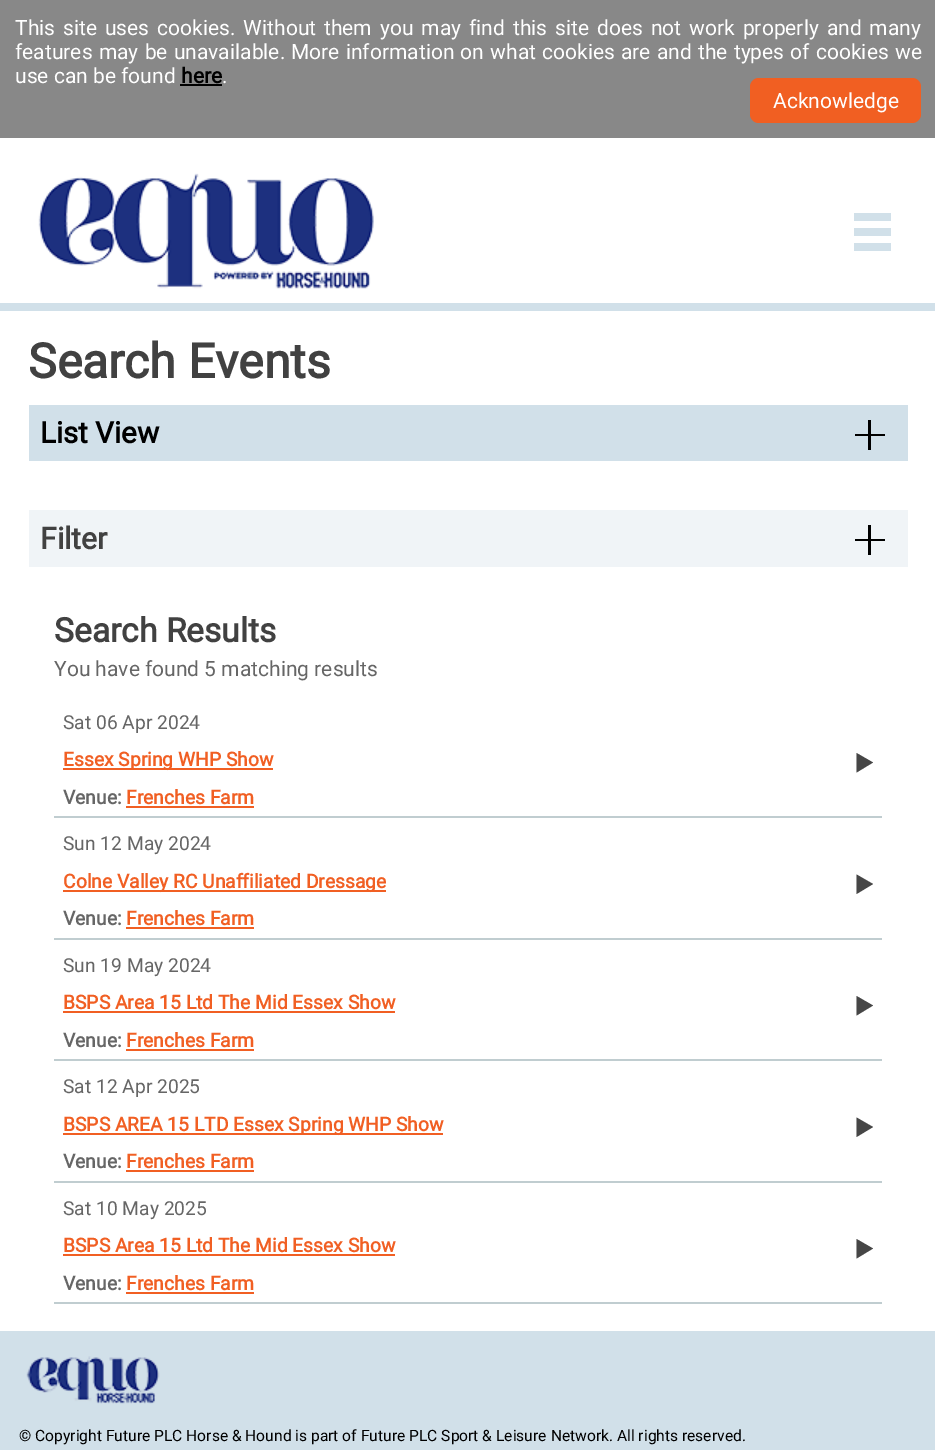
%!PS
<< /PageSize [935 1450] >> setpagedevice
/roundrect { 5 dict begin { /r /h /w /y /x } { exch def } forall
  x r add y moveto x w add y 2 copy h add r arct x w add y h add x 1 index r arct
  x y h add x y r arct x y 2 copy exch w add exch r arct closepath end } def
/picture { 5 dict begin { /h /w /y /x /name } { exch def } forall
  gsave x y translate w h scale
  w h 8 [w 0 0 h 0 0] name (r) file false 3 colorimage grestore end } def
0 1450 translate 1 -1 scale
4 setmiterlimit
1 setgray
0 0 935 1450 rectfill
0.533 setgray
0 0 935 138 rectfill
/Roboto-Regular [21 0 0 -21 0 0] selectfont
1 setgray
15 35 moveto 2.75 0 32 (This site uses cookies. Without them you may find this site does not work properly and many) widthshow
15 59 moveto 1 0 32 (features may be unavailable.) widthshow
291 59 moveto 1 0 32 (More information on what cookies are and the types of cookies we) widthshow
15 83 moveto (use can be found) show
/Roboto-Bold [21 0 0 -21 0 0] selectfont
0 setgray
181 83 moveto (here) show
180 84 42 2 rectfill
/Roboto-Regular [21 0 0 -21 0 0] selectfont
1 setgray
222 83 moveto (.) show
0.945 0.373 0.133 setrgbcolor
750 78 171 45 9 roundrect fill
1 setgray
773 108 moveto (Acknowledge) show
0.82 0.878 0.914 setrgbcolor
0 303 935 8 rectfill
(img1.rgb) 38 173 336 116 picture
854 243 37 8 rectfill
854 228 37 8 rectfill
854 213 37 8 rectfill
/Roboto-Bold [48 0 0 -48 0 0] selectfont
0.255 setgray
28 378 moveto (Search Events) show
0.82 0.878 0.914 setrgbcolor
29 405 879 56 rectfill
/Roboto-Bold [29.5 0 0 -29.5 0 0] selectfont
0 setgray
40 443 moveto (List View) show
868 420 3 30 rectfill
855 434 30 2 rectfill
0.941 0.957 0.969 setrgbcolor
29 510 879 57 rectfill
/Roboto-Bold [30 0 0 -30 0 0] selectfont
0.255 setgray
40 549 moveto (Filter) show
0 setgray
868 525 3 30 rectfill
855 539 30 2 rectfill
/Roboto-Bold [33.5 0 0 -33.5 0 0] selectfont
0.255 setgray
54 642 moveto (Search Results) show
/Roboto-Regular [21 0 0 -21 0 0] selectfont
0.4 setgray
54 676 moveto (You have found 5 matching results) show
0.753 0.804 0.816 setrgbcolor
54 816 828 2 rectfill
/Roboto-Regular [19.25 0 0 -19.25 0 0] selectfont
0.4 setgray
63 729 moveto (Sat 06 Apr 2024) show
0.945 0.373 0.137 setrgbcolor
63 768 210 2 rectfill
/Roboto-Bold [19.25 0 0 -19.25 0 0] selectfont
63 766 moveto (Essex Spring WHP Show) show
0.275 setgray
newpath 856.5 753 moveto 873 762.5 lineto 856.5 772.5 lineto closepath fill
0.4 setgray
63 804 moveto (Venue:) show
0.945 0.373 0.137 setrgbcolor
126 804 moveto (Frenches Farm) show
126 806 128 2 rectfill
0.753 0.804 0.816 setrgbcolor
54 938 828 2 rectfill
/Roboto-Regular [19.25 0 0 -19.25 0 0] selectfont
0.4 setgray
63 850 moveto (Sun 12 May 2024) show
0.945 0.373 0.137 setrgbcolor
63 890 323 2 rectfill
/Roboto-Bold [19.25 0 0 -19.25 0 0] selectfont
63 888 moveto (Colne Valley RC Unaffiliated Dressage) show
0.275 setgray
newpath 856.5 874.5 moveto 873 884 lineto 856.5 894 lineto closepath fill
0.4 setgray
63 925 moveto (Venue:) show
0.945 0.373 0.137 setrgbcolor
126 925 moveto (Frenches Farm) show
126 927 128 2 rectfill
0.753 0.804 0.816 setrgbcolor
54 1059 828 2 rectfill
/Roboto-Regular [19.25 0 0 -19.25 0 0] selectfont
0.4 setgray
63 972 moveto (Sun 19 May 2024) show
/Roboto-Bold [19.25 0 0 -19.25 0 0] selectfont
0.945 0.373 0.137 setrgbcolor
63 1009 moveto (BSPS Area 15 Ltd The Mid Essex Show) show
63 1011 332 2 rectfill
0.275 setgray
newpath 856.5 996 moveto 873 1005.5 lineto 856.5 1015.5 lineto closepath fill
0.4 setgray
63 1047 moveto (Venue:) show
0.945 0.373 0.137 setrgbcolor
126 1047 moveto (Frenches Farm) show
126 1049 128 2 rectfill
0.753 0.804 0.816 setrgbcolor
54 1181 828 2 rectfill
/Roboto-Regular [19.25 0 0 -19.25 0 0] selectfont
0.4 setgray
63 1093 moveto (Sat 12 Apr 2025) show
0.945 0.373 0.137 setrgbcolor
63 1133 380 2 rectfill
/Roboto-Bold [19.25 0 0 -19.25 0 0] selectfont
63 1131 moveto (BSPS AREA 15 LTD Essex Spring WHP Show) show
0.275 setgray
newpath 856.5 1117.5 moveto 873 1127 lineto 856.5 1137 lineto closepath fill
0.4 setgray
63 1168 moveto (Venue:) show
0.945 0.373 0.137 setrgbcolor
126 1168 moveto (Frenches Farm) show
126 1170 128 2 rectfill
0.753 0.804 0.816 setrgbcolor
54 1302 828 2 rectfill
/Roboto-Regular [19.25 0 0 -19.25 0 0] selectfont
0.4 setgray
63 1215 moveto (Sat 10 May 2025) show
/Roboto-Bold [19.25 0 0 -19.25 0 0] selectfont
0.945 0.373 0.137 setrgbcolor
63 1252 moveto (BSPS Area 15 Ltd The Mid Essex Show) show
63 1254 332 2 rectfill
0.275 setgray
newpath 856.5 1239 moveto 873 1248.5 lineto 856.5 1258.5 lineto closepath fill
0.4 setgray
63 1290 moveto (Venue:) show
0.945 0.373 0.137 setrgbcolor
126 1290 moveto (Frenches Farm) show
126 1292 128 2 rectfill
0.82 0.878 0.914 setrgbcolor
0 1331 935 119 rectfill
(img2.rgb) 26 1356 134 48 picture
/Roboto-Regular [15.6 0 0 -15.6 0 0] selectfont
0 setgray
19 1441 moveto (© Copyright Future PLC Horse & Hound is part of Future PLC Sport & Leisure Network. All rights reserved.) show
showpage
